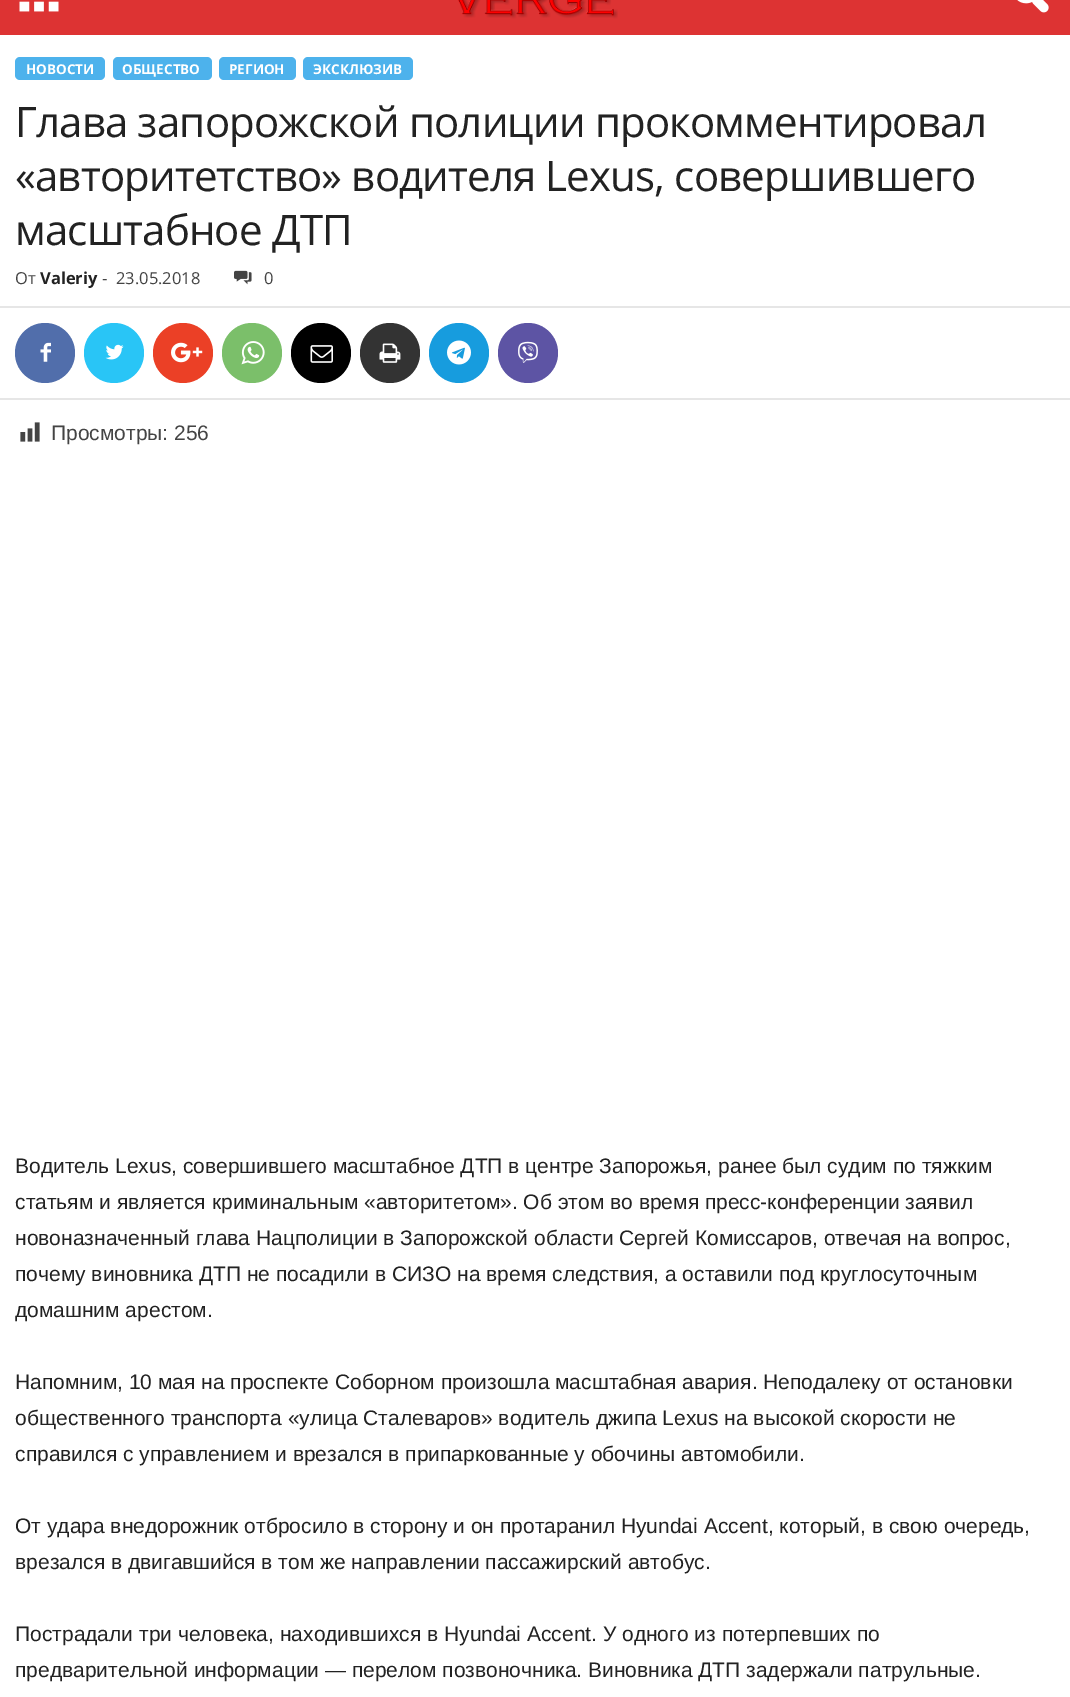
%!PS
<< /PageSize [1070 1697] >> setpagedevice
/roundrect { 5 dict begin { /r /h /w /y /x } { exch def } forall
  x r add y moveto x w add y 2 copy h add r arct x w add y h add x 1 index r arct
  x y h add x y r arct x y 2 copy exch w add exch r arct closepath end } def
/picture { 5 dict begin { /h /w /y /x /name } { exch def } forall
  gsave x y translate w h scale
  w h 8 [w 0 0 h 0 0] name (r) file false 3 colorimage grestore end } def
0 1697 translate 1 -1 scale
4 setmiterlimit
1 setgray
0 0 1070 1697 rectfill
0.867 0.2 0.2 setrgbcolor
0 0 1070 35 rectfill
(img1.rgb) 19 1 40 11 picture
(img2.rgb) 458 0 160 19 picture
(img3.rgb) 1017 0 32 13 picture
0.302 0.698 0.925 setrgbcolor
15 57 90 23 5 roundrect fill
/OpenSans-Bold [13.5 0 0 -13.5 0 0] selectfont
1 setgray
26 74 moveto (НОВОСТИ) show
0.302 0.698 0.925 setrgbcolor
113 57 99 23 5 roundrect fill
1 setgray
122 74 moveto (ОБЩЕСТВО) show
0.302 0.698 0.925 setrgbcolor
219 57 77 23 5 roundrect fill
1 setgray
229 74 moveto (РЕГИОН) show
0.302 0.698 0.925 setrgbcolor
303 57 110 23 5 roundrect fill
1 setgray
313 74 moveto (ЭКСКЛЮЗИВ) show
/OpenSans-Regular [42 0 0 -42 0 0] selectfont
0.133 setgray
15 137 moveto -0.85 0 (Глава запорожской полиции прокомментировал) ashow
15 191 moveto -0.85 0 («авторитетство» водителя Lexus, совершившего) ashow
15 245 moveto -0.85 0 (масштабное ДТП) ashow
/OpenSans-Regular [16.5 0 0 -16.5 0 0] selectfont
0.267 setgray
15 284 moveto (От) show
/OpenSans-Bold [16.5 0 0 -16.5 0 0] selectfont
0.133 setgray
40 284 moveto (Valeriy) show
/OpenSans-Regular [16.5 0 0 -16.5 0 0] selectfont
0.267 setgray
102 284 moveto (-) show
116 284 moveto (23.05.2018) show
(img4.rgb) 234 270 18 15 picture
264 284 moveto (0) show
0.902 setgray
0 306 1070 2 rectfill
0.318 0.431 0.671 setrgbcolor
newpath 45 353 30 0 360 arc closepath fill
(img5.rgb) 40 342 11 20 picture
0.161 0.773 0.965 setrgbcolor
newpath 114 353 30 0 360 arc closepath fill
(img6.rgb) 105 344 19 16 picture
0.922 0.251 0.149 setrgbcolor
newpath 183 353 30 0 360 arc closepath fill
(img7.rgb) 171 342 32 21 picture
0.482 0.749 0.416 setrgbcolor
newpath 252 353 30 0 360 arc closepath fill
(img8.rgb) 241 341 24 24 picture
0 setgray
newpath 321 353 30 0 360 arc closepath fill
(img9.rgb) 310 345 23 18 picture
0.2 setgray
newpath 390 353 30 0 360 arc closepath fill
(img10.rgb) 379 343 22 20 picture
0.09 0.612 0.871 setrgbcolor
newpath 459 353 30 0 360 arc closepath fill
(img11.rgb) 447 340 24 25 picture
0.365 0.329 0.643 setrgbcolor
newpath 528 353 30 0 360 arc closepath fill
(img12.rgb) 518 341 20 22 picture
0.902 setgray
0 398 1070 2 rectfill
(img13.rgb) 20 422 20 20 picture
/LiberationSans-Regular [21 0 0 -21 0 0] selectfont
0.267 setgray
51 440 moveto (Просмотры: 256) show
0.133 setgray
15 1173 moveto (Водитель Lexus, совершившего масштабное ДТП в центре Запорожья, ранее был судим по тяжким) show
15 1209 moveto (статьям и является криминальным «авторитетом». Об этом во время пресс-конференции заявил) show
15 1245 moveto (новоназначенный глава Нацполиции в Запорожской области Сергей Комиссаров, отвечая на вопрос,) show
15 1281 moveto (почему виновника ДТП не посадили в СИЗО на время следствия, а оставили под круглосуточным) show
15 1317 moveto (домашним арестом.) show
15 1389 moveto (Напомним, 10 мая на проспекте Соборном произошла масштабная авария. Неподалеку от остановки) show
15 1425 moveto (общественного транспорта «улица Сталеваров» водитель джипа Lexus на высокой скорости не) show
15 1461 moveto (справился с управлением и врезался в припаркованные у обочины автомобили.) show
15 1533 moveto (От удара внедорожник отбросило в сторону и он протаранил Hyundai Accent, который, в свою очередь,) show
15 1569 moveto (врезался в двигавшийся в том же направлении пассажирский автобус.) show
15 1641 moveto (Пострадали три человека, находившихся в Hyundai Accent. У одного из потерпевших по) show
15 1677 moveto (предварительной информации — перелом позвоночника. Виновника ДТП задержали патрульные.) show
showpage
